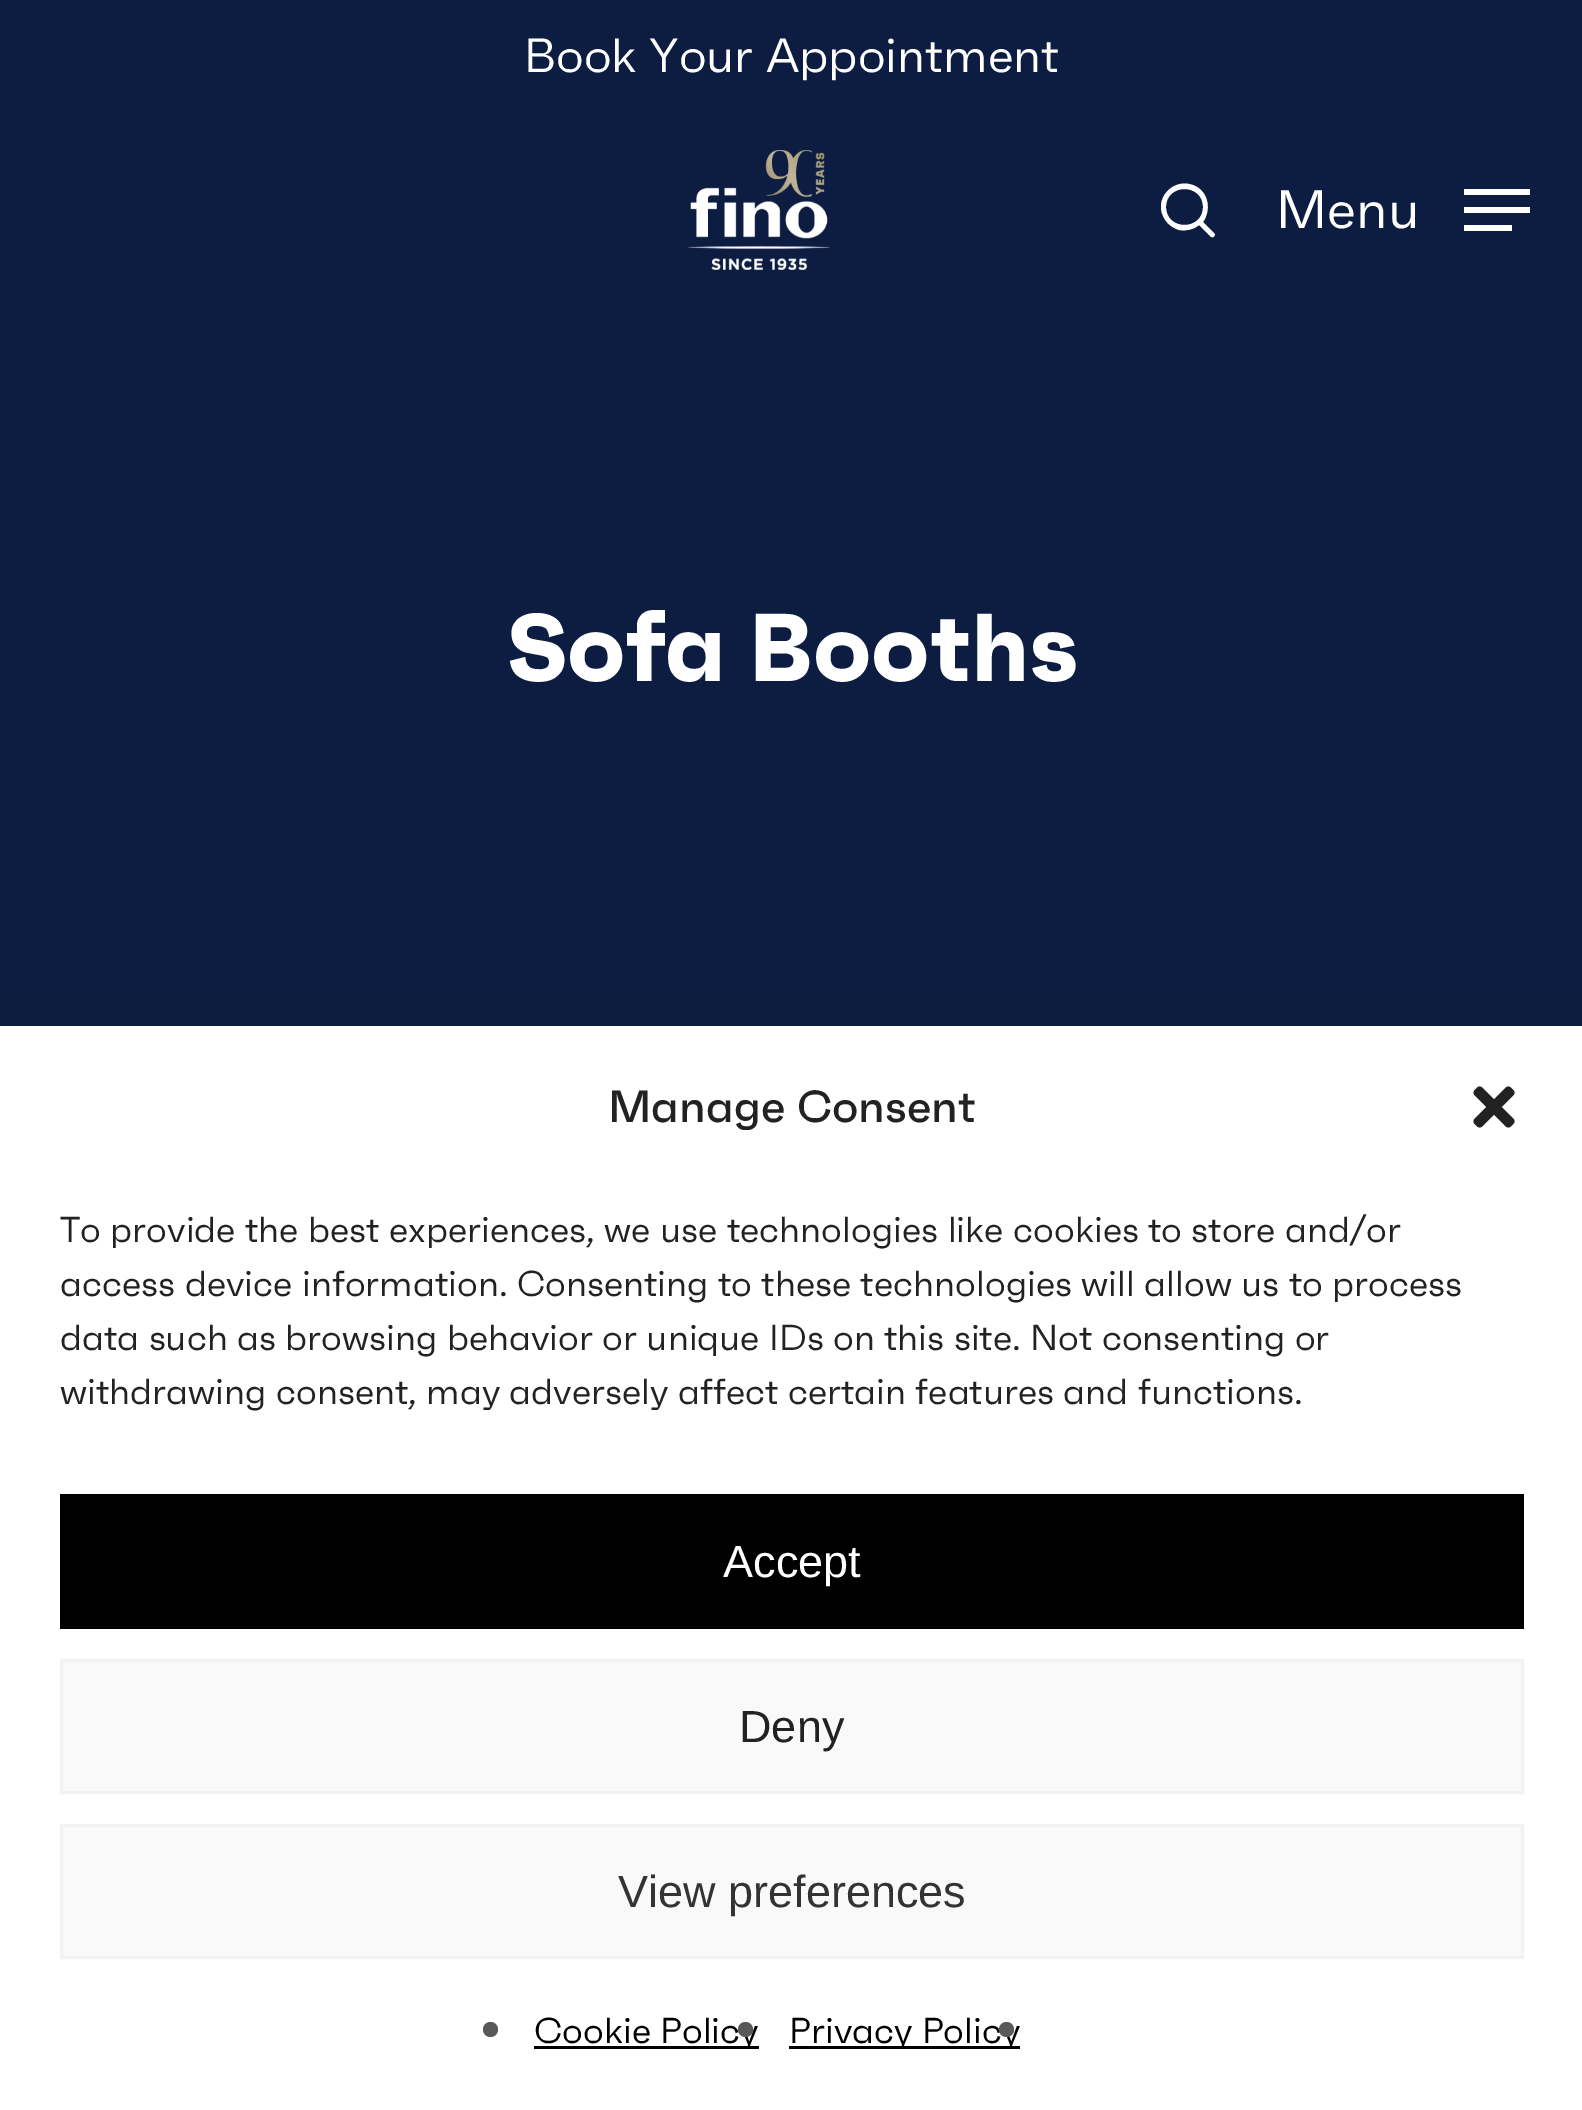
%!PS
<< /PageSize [1582 2110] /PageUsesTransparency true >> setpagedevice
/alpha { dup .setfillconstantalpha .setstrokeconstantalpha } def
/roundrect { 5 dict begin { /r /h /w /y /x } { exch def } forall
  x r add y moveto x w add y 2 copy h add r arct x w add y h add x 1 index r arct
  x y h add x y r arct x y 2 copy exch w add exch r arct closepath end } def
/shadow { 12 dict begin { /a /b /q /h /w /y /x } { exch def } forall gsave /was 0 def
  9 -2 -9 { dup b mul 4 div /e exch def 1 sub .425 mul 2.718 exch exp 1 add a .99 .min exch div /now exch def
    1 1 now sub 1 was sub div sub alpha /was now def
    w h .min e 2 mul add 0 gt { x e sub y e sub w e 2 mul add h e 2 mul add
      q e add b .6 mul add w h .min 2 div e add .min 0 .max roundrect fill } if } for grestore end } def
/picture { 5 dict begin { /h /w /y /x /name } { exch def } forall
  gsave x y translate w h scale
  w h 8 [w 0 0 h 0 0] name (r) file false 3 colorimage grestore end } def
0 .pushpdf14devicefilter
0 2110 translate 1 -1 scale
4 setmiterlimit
0.047 0.114 0.255 setrgbcolor
0 0 1582 2110 rectfill
/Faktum-Regular [48 0 0 -48 0 0] selectfont
1 setgray
524 72 moveto (Book Your Appointment) show
(img1.rgb) 687 150 144 120 picture
newpath 1214 233 moveto 1203 222 lineto 1211 211 1209 194 1197 187 curveto 1175 174 1150 200 1166 221 curveto 1169 225 1173 228 1179 230 curveto 1186 231 1193 230 1199 225 curveto 1211 237 lineto 1214 238 1216 235 1214 233 curveto closepath 1166 207 moveto 1166 183 1203 183 1203 207 curveto 1203 231 1166 231 1166 207 curveto closepath fill
/Faktum-Regular [54 0 0 -54 0 0] selectfont
1276 228 moveto (Menu) show
1464 189 66 6 rectfill
1464 225 48 6 rectfill
1464 207 66 6 rectfill
/Faktum-Bold [96 0 0 -96 0 0] selectfont
507 681 moveto (Sofa Booths) show
0 setgray
0 1056 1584 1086 0 30 0.19 shadow
1 setgray
0 1026 1582 1084 rectfill
/Faktum-Medium [45 0 0 -45 0 0] selectfont
0.133 setgray
608 1122 moveto (Manage Consent) show
(img2.rgb) 1473 1086 42 42 picture
/Faktum-Regular [36 0 0 -36 0 0] selectfont
60 1242 moveto (To provide the best experiences, we use technologies like cookies to store and/or) show
60 1296 moveto (access device information. Consenting to these technologies will allow us to process) show
60 1350 moveto (data such as browsing behavior or unique IDs on this site. Not consenting or) show
60 1404 moveto (withdrawing consent, may adversely affect certain features and functions.) show
0 setgray
60 1494 1464 135 rectfill
/LiberationSans-Regular [45 0 0 -45 0 0] selectfont
1 setgray
723 1577 moveto (Accept) show
0.976 setgray
newpath 61.5 1660.5 moveto 1522.5 1660.5 lineto 1522.5 1792.5 lineto 61.5 1792.5 lineto closepath gsave fill grestore
0.949 setgray
3 setlinewidth
stroke
0.133 setgray
739 1742 moveto (Deny) show
0.976 setgray
newpath 61.5 1825.5 moveto 1522.5 1825.5 lineto 1522.5 1957.5 lineto 61.5 1957.5 lineto closepath gsave fill grestore
0.949 setgray
stroke
0.2 setgray
618 1907 moveto (View preferences) show
0.349 setgray
newpath 490.5 2029.5 7.5 0 360 arc closepath fill
0 setgray
534 2046 225 3 rectfill
/Faktum-Regular [36 0 0 -36 0 0] selectfont
534 2043 moveto (Cookie Policy) show
0.349 setgray
newpath 745.5 2029.5 7.5 0 360 arc closepath fill
0 setgray
789 2046 231 3 rectfill
789 2043 moveto (Privacy Policy) show
0.349 setgray
newpath 1006.5 2029.5 7.5 0 360 arc closepath fill
.poppdf14devicefilter showpage
